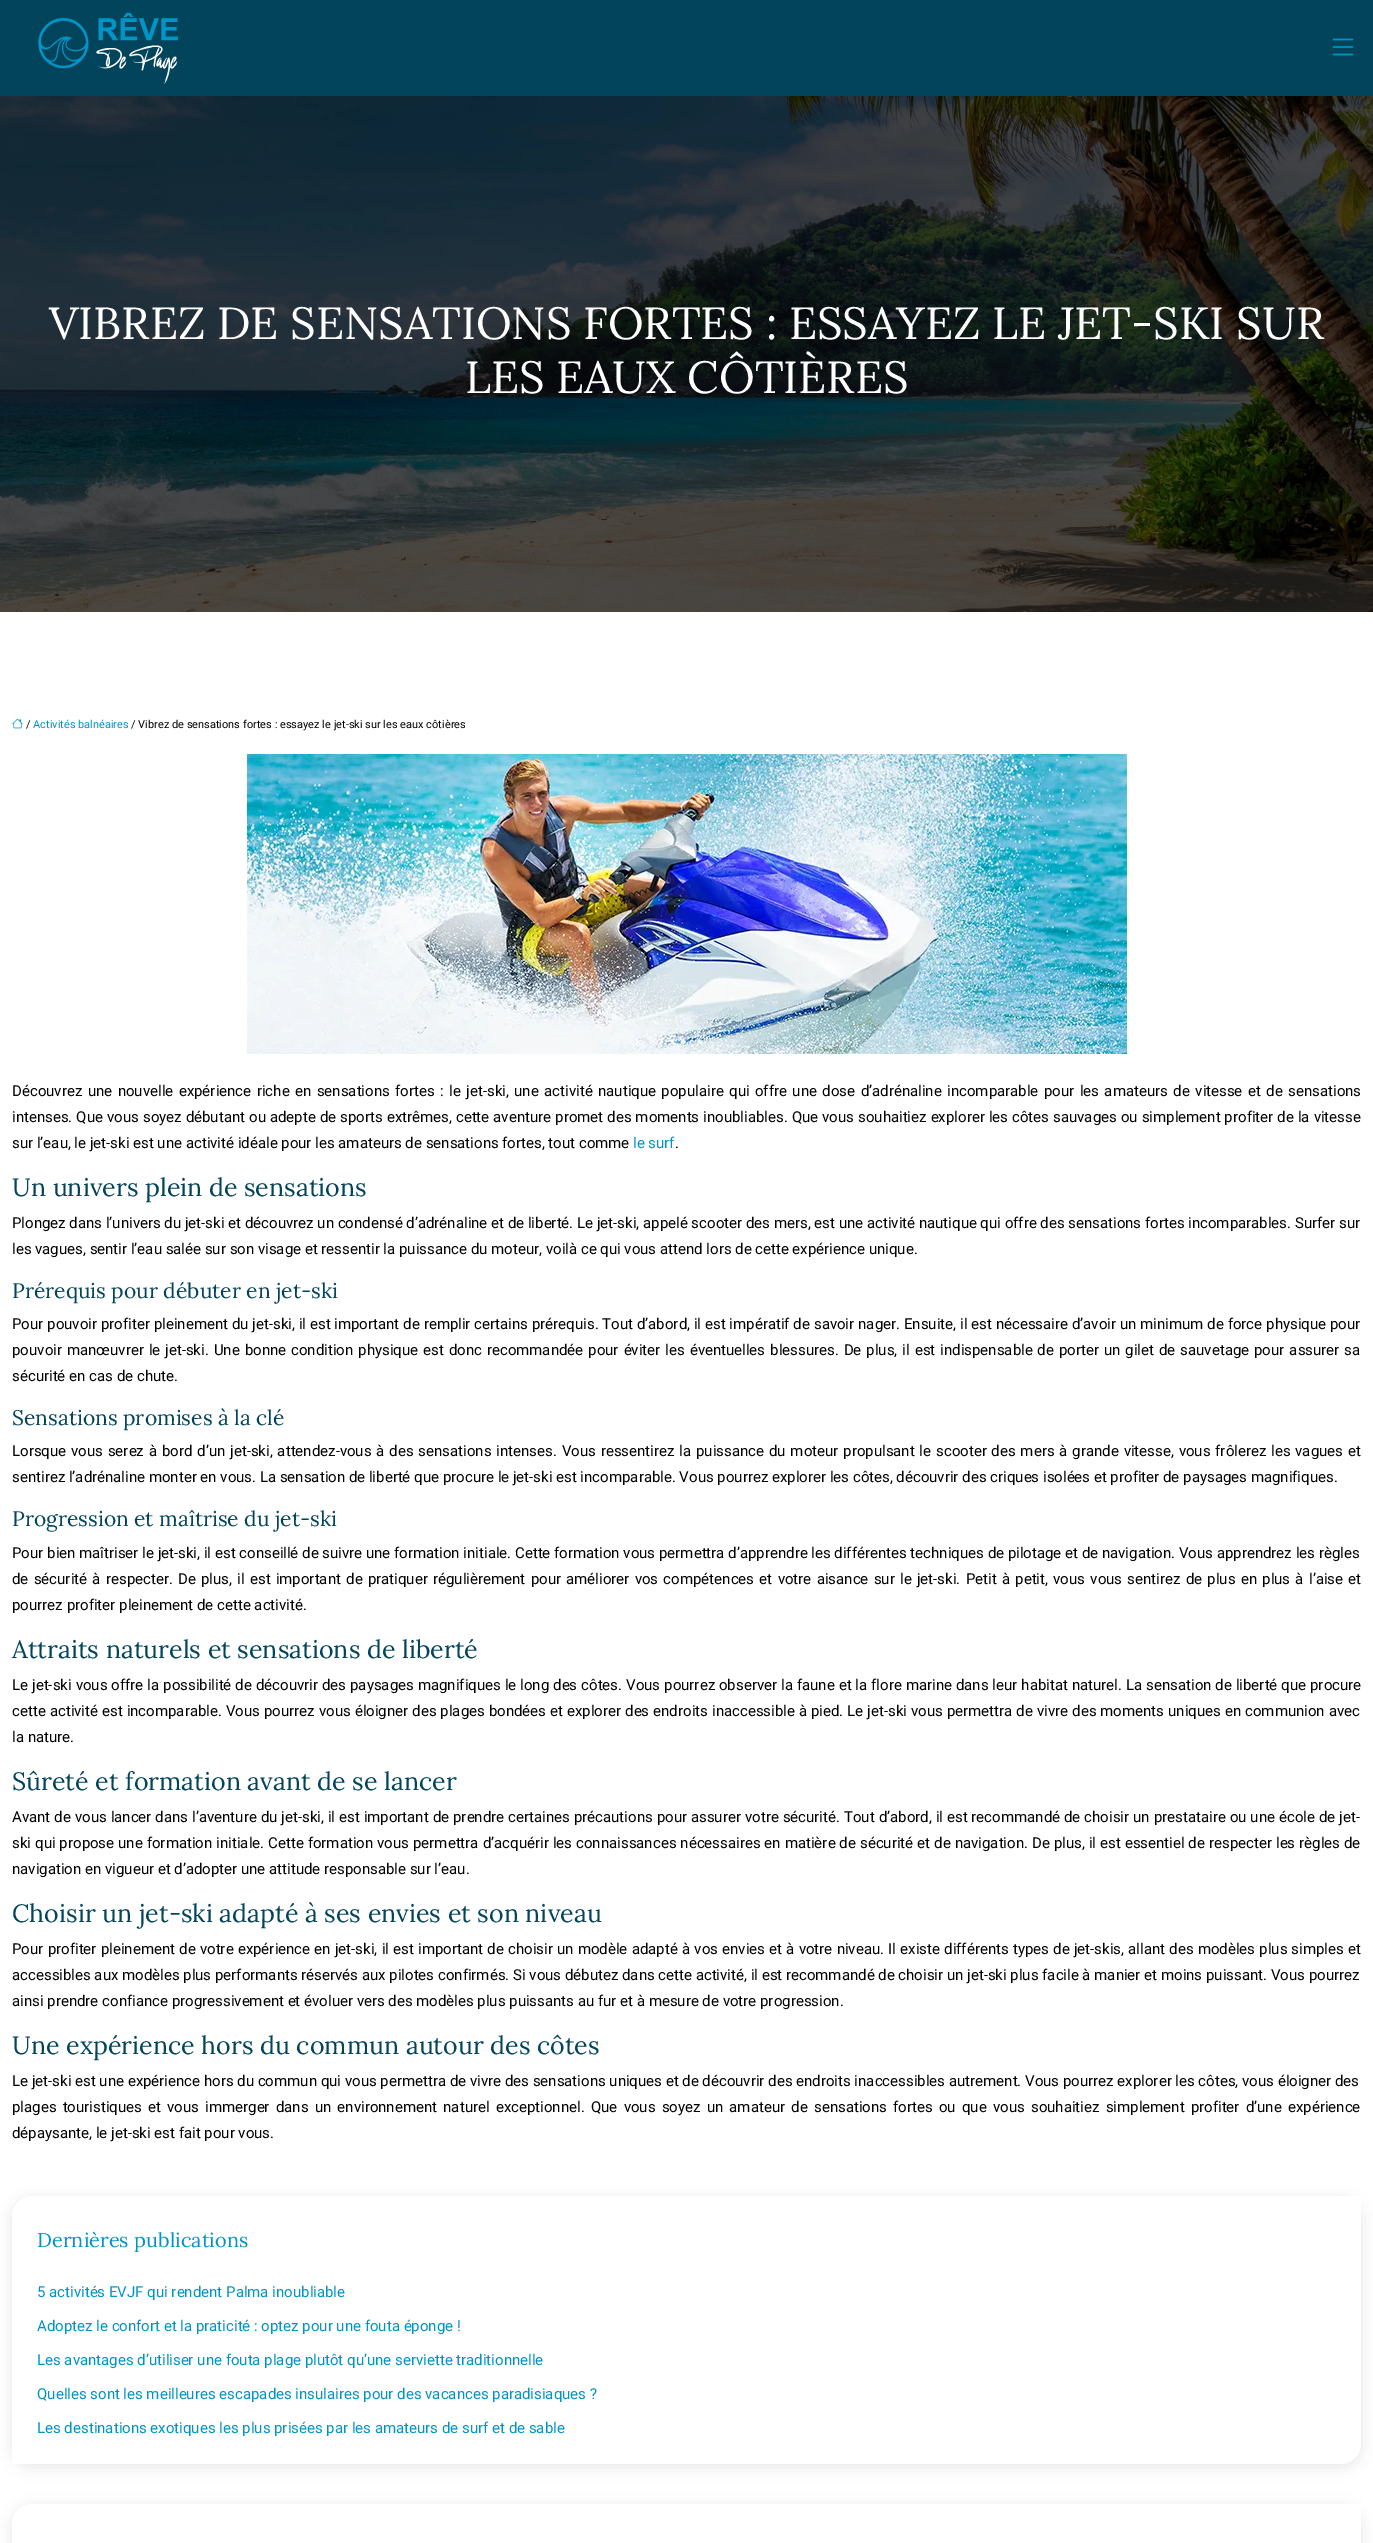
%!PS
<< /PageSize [1373 2543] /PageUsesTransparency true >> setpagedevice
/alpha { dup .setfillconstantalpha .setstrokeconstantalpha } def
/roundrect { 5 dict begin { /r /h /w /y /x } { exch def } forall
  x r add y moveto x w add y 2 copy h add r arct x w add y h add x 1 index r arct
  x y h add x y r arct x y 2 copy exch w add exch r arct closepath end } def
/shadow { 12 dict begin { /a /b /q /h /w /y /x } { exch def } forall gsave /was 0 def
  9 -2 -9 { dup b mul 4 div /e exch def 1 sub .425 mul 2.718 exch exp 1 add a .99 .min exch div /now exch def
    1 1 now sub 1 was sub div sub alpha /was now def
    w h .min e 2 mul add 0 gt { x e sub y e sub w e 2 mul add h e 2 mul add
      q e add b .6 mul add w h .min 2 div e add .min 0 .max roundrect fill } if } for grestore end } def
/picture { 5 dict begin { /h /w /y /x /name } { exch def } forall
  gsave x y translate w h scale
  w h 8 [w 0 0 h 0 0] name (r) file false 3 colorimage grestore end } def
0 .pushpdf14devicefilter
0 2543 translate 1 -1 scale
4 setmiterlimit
1 setgray
0 0 1373 2543 rectfill
0.004 0.267 0.357 setrgbcolor
0 0 1373 96 rectfill
(img1.rgb) 38 12 140 72 picture
(img2.rgb) 1332 38 22 18 picture
(img3.rgb) 0 96 1373 516 picture
/Lora-Regular [45 0 0 -45 0 0] selectfont
1 setgray
49 339 moveto (VIBREZ DE SENSATIONS FORTES : ESSAYEZ LE JET-SKI SUR) show
465 393 moveto (LES EAUX CÔTIÈRES) show
(img4.rgb) 12 718 11 11 picture
/Roboto-Regular [11 0 0 -11 0 0] selectfont
0 setgray
26 728 moveto (/) show
0 0.58 0.773 setrgbcolor
33 728 moveto (Activités balnéaires) show
0 setgray
131 728 moveto (/ Vibrez de sensations fortes : essayez le jet-ski sur les eaux côtières) show
(img5.rgb) 247 754 880 300 picture
/Roboto-Regular [15 0 0 -15 0 0] selectfont
12 1096 moveto 1.75 0 32 (Découvrez une nouvelle expérience riche en sensations fortes : le jet-ski, une activité nautique populaire qui offre une dose d’adrénaline incomparable pour les amateurs de vitesse et de sensations) widthshow
12 1122 moveto 0.3 0 32 (intenses. Que vous soyez débutant ou adepte de sports extrêmes, cette aventure promet des moments inoubliables. Que vous souhaitiez explorer les côtes sauvages ou simplement profiter de la vitesse) widthshow
12 1148 moveto (sur l’eau, le jet-ski est une activité idéale pour les amateurs de sensations fortes, tout comme) show
0 0.58 0.773 setrgbcolor
633 1148 moveto (le surf) show
0 setgray
675 1148 moveto (.) show
/Lora-Regular [25 0 0 -25 0 0] selectfont
0.004 0.267 0.357 setrgbcolor
12 1196 moveto (Un univers plein de sensations) show
/Roboto-Regular [15 0 0 -15 0 0] selectfont
0 setgray
12 1228 moveto (Plongez dans l’univers du jet-ski et découvrez un condensé d’adrénaline et de liberté. Le jet-ski, appelé scooter des mers, est une activité nautique qui offre des sensations fortes incomparables. Surfer sur) show
12 1254 moveto (les vagues, sentir l’eau salée sur son visage et ressentir la puissance du moteur, voilà ce qui vous attend lors de cette expérience unique.) show
/Lora-Regular [21 0 0 -21 0 0] selectfont
0.004 0.267 0.357 setrgbcolor
12 1298 moveto (Prérequis pour débuter en jet-ski) show
/Roboto-Regular [15 0 0 -15 0 0] selectfont
0 setgray
12 1329 moveto 0.15 0 32 (Pour pouvoir profiter pleinement du jet-ski, il est important de remplir certains prérequis. Tout d’abord, il est impératif de savoir nager. Ensuite, il est nécessaire d’avoir un minimum de force physique pour) widthshow
12 1355 moveto 1.25 0 32 (pouvoir manœuvrer le jet-ski. Une bonne condition physique est donc recommandée pour éviter les éventuelles blessures. De plus, il est indispensable de porter un gilet de sauvetage pour assurer sa) widthshow
12 1381 moveto (sécurité en cas de chute.) show
/Lora-Regular [21 0 0 -21 0 0] selectfont
0.004 0.267 0.357 setrgbcolor
12 1425 moveto (Sensations promises à la clé) show
/Roboto-Regular [15 0 0 -15 0 0] selectfont
0 setgray
12 1456 moveto 1.15 0 32 (Lorsque vous serez à bord d’un jet-ski, attendez-vous à des sensations intenses. Vous ressentirez la puissance du moteur propulsant le scooter des mers à grande vitesse, vous frôlerez les vagues et) widthshow
12 1482 moveto (sentirez l’adrénaline monter en vous. La sensation de liberté que procure le jet-ski est incomparable. Vous pourrez explorer les côtes, découvrir des criques isolées et profiter de paysages magnifiques.) show
/Lora-Regular [21 0 0 -21 0 0] selectfont
0.004 0.267 0.357 setrgbcolor
12 1526 moveto (Progression et maîtrise du jet-ski) show
/Roboto-Regular [15 0 0 -15 0 0] selectfont
0 setgray
12 1558 moveto (Pour bien maîtriser le jet-ski, il est conseillé de suivre une formation initiale. Cette formation vous permettra d’apprendre les différentes techniques de pilotage et de navigation. Vous apprendrez les règles) show
12 1584 moveto 1.55 0 32 (de sécurité à respecter. De plus, il est important de pratiquer régulièrement pour améliorer vos compétences et votre aisance sur le jet-ski. Petit à petit, vous vous sentirez de plus en plus à l’aise et) widthshow
12 1610 moveto (pourrez profiter pleinement de cette activité.) show
/Lora-Regular [25 0 0 -25 0 0] selectfont
0.004 0.267 0.357 setrgbcolor
12 1658 moveto (Attraits naturels et sensations de liberté) show
/Roboto-Regular [15 0 0 -15 0 0] selectfont
0 setgray
12 1690 moveto 0.25 0 32 (Le jet-ski vous offre la possibilité de découvrir des paysages magnifiques le long des côtes. Vous pourrez observer la faune et la flore marine dans leur habitat naturel. La sensation de liberté que procure) widthshow
12 1716 moveto 0.3 0 32 (cette activité est incomparable. Vous pourrez vous éloigner des plages bondées et explorer des endroits inaccessible à pied. Le jet-ski vous permettra de vivre des moments uniques en communion avec) widthshow
12 1742 moveto (la nature.) show
/Lora-Regular [25 0 0 -25 0 0] selectfont
0.004 0.267 0.357 setrgbcolor
12 1790 moveto (Sûreté et formation avant de se lancer) show
/Roboto-Regular [15 0 0 -15 0 0] selectfont
0 setgray
12 1822 moveto 0.25 0 32 (Avant de vous lancer dans l’aventure du jet-ski, il est important de prendre certaines précautions pour assurer votre sécurité. Tout d’abord, il est recommandé de choisir un prestataire ou une école de jet-) widthshow
12 1848 moveto 0.3 0 32 (ski qui propose une formation initiale. Cette formation vous permettra d’acquérir les connaissances nécessaires en matière de sécurité et de navigation. De plus, il est essentiel de respecter les règles de) widthshow
12 1874 moveto (navigation en vigueur et d’adopter une attitude responsable sur l’eau.) show
/Lora-Regular [25 0 0 -25 0 0] selectfont
0.004 0.267 0.357 setrgbcolor
12 1922 moveto (Choisir un jet-ski adapté à ses envies et son niveau) show
/Roboto-Regular [15 0 0 -15 0 0] selectfont
0 setgray
12 1954 moveto 0.5 0 32 (Pour profiter pleinement de votre expérience en jet-ski, il est important de choisir un modèle adapté à vos envies et à votre niveau. Il existe différents types de jet-skis, allant des modèles plus simples et) widthshow
12 1980 moveto (accessibles aux modèles plus performants réservés aux pilotes confirmés. Si vous débutez dans cette activité, il est recommandé de choisir un jet-ski plus facile à manier et moins puissant. Vous pourrez) show
12 2006 moveto (ainsi prendre confiance progressivement et évoluer vers des modèles plus puissants au fur et à mesure de votre progression.) show
/Lora-Regular [25 0 0 -25 0 0] selectfont
0.004 0.267 0.357 setrgbcolor
12 2054 moveto (Une expérience hors du commun autour des côtes) show
/Roboto-Regular [15 0 0 -15 0 0] selectfont
0 setgray
12 2086 moveto (Le jet-ski est une expérience hors du commun qui vous permettra de vivre des sensations uniques et de découvrir des endroits inaccessibles autrement. Vous pourrez explorer les côtes, vous éloigner des) show
12 2112 moveto 2.5 0 32 (plages touristiques et vous immerger dans un environnement naturel exceptionnel. Que vous soyez un amateur de sensations fortes ou que vous souhaitiez simplement profiter d’une expérience) widthshow
12 2138 moveto (dépaysante, le jet-ski est fait pour vous.) show
12 2199 1349 268 20 7.5 0.1 shadow
1 setgray
newpath 32 2196 moveto 1361 2196 lineto 1361 2444 lineto 1361 2455 1352 2464 1341 2464 curveto 12 2464 lineto 12 2216 lineto 12 2205 21 2196 32 2196 curveto closepath fill
/Lora-Regular [20 0 0 -20 0 0] selectfont
0 0.58 0.773 setrgbcolor
37 2247 moveto (Dernières publications) show
/Roboto-Regular [15 0 0 -15 0 0] selectfont
37 2297 moveto (5 activités EVJF qui rendent Palma inoubliable) show
37 2331 moveto (Adoptez le confort et la praticité : optez pour une fouta éponge !) show
37 2365 moveto (Les avantages d’utiliser une fouta plage plutôt qu’une serviette traditionnelle) show
37 2399 moveto (Quelles sont les meilleures escapades insulaires pour des vacances paradisiaques ?) show
37 2433 moveto (Les destinations exotiques les plus prisées par les amateurs de surf et de sable) show
0 setgray
12 2507 1349 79 20 7.5 0.1 shadow
1 setgray
newpath 32 2504 moveto 1361 2504 lineto 1361 2543 lineto 1361 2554 1352 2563 1341 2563 curveto 12 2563 lineto 12 2524 lineto 12 2513 21 2504 32 2504 curveto closepath fill
.poppdf14devicefilter showpage
